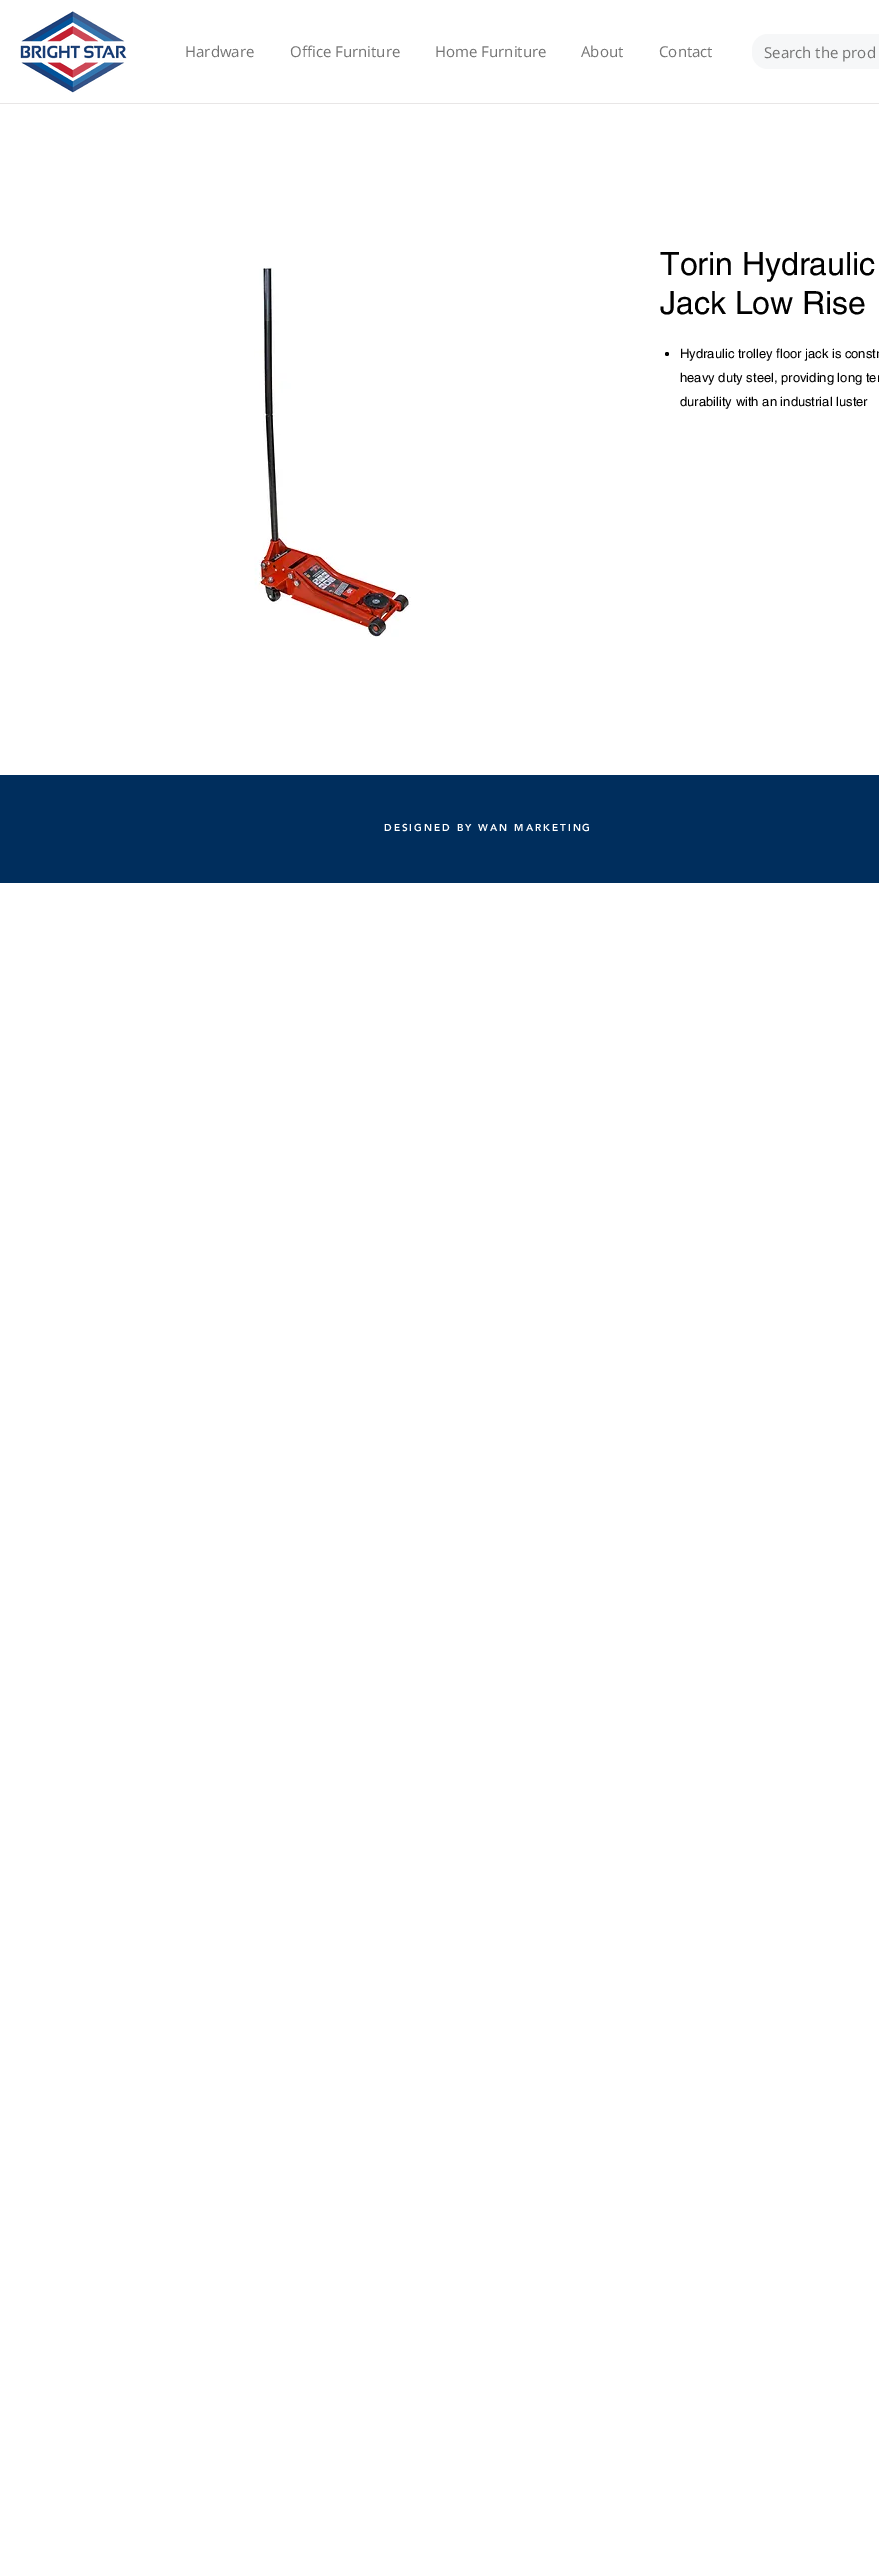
%!PS
<< /PageSize [879 2556] >> setpagedevice
/roundrect { 5 dict begin { /r /h /w /y /x } { exch def } forall
  x r add y moveto x w add y 2 copy h add r arct x w add y h add x 1 index r arct
  x y h add x y r arct x y 2 copy exch w add exch r arct closepath end } def
/picture { 5 dict begin { /h /w /y /x /name } { exch def } forall
  gsave x y translate w h scale
  w h 8 [w 0 0 h 0 0] name (r) file false 3 colorimage grestore end } def
0 2556 translate 1 -1 scale
4 setmiterlimit
1 setgray
0 0 879 2556 rectfill
(img1.rgb) 20 11 107 82 picture
/OpenSans-Regular [15 0 0 -15 0 0] selectfont
0.459 setgray
185 57 moveto (Hardware) show
290 57 moveto (Office Furniture) show
435 57 moveto (Home Furniture) show
581 57 moveto (About) show
659 57 moveto (Contact) show
0.965 0.969 0.973 setrgbcolor
752 34 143 35 16 roundrect fill
0.459 setgray
764 58 moveto (Search the prod) show
0.91 0.902 0.902 setrgbcolor
0 103 879 1 rectfill
(img2.rgb) 254 266 157 371 picture
/helvetica-Regular [32 0 0 -32 0 0] selectfont
0 setgray
660 275 moveto (Torin Hydraulic) show
660 314 moveto (Jack Low Rise) show
newpath 667 354 2 0 360 arc closepath fill
/helvetica-Regular [13 0 0 -13 0 0] selectfont
680 358 moveto (Hydraulic trolley floor jack is constr) show
680 382 moveto (heavy duty steel, providing long ter) show
680 406 moveto (durability with an industrial luster) show
0 0.18 0.365 setrgbcolor
0 775 879 108 rectfill
/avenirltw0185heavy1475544-Black [10 0 0 -10 0 0] selectfont
1 setgray
384 831 moveto 2 0 (DESIGNED BY WAN MARKETING) ashow
showpage
